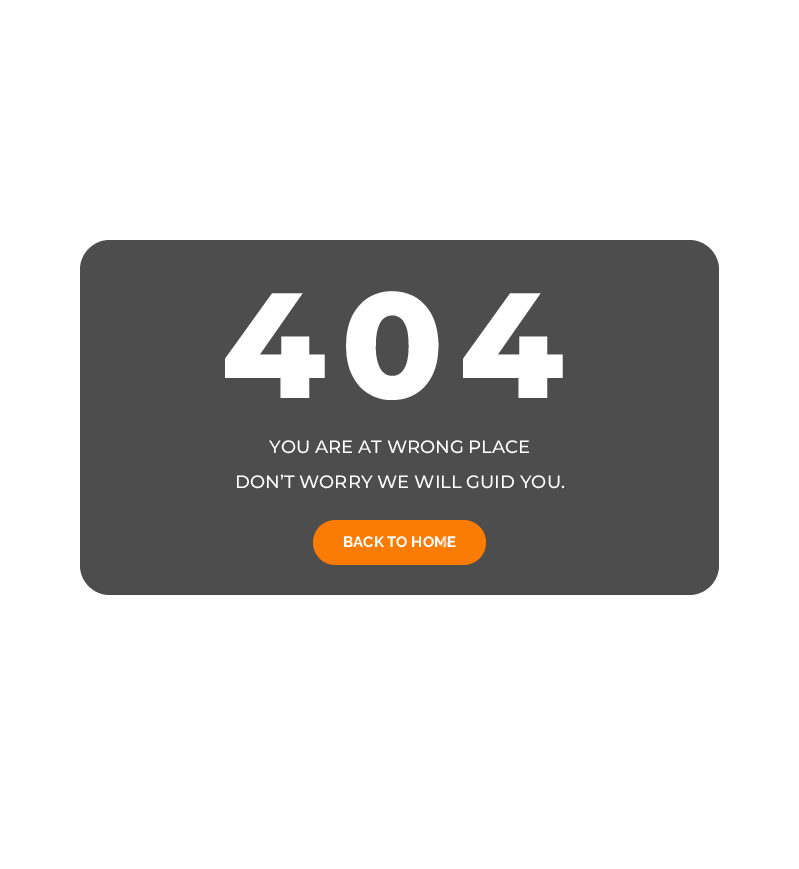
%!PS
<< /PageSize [799 869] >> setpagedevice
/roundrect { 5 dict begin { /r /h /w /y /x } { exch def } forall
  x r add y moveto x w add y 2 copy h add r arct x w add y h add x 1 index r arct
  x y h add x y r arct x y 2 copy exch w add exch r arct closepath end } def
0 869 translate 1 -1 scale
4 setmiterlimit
1 setgray
0 0 799 869 rectfill
0.302 setgray
80 240 639 355 30 roundrect fill
/Montserrat-ExtraBold [150 0 0 -150 0 0] selectfont
1 setgray
221 398 moveto 15 0 (404) ashow
/Montserrat-Medium [18 0 0 -18 0 0] selectfont
269 453 moveto (YOU ARE AT WRONG PLACE) show
235 488 moveto (DON’T WORRY WE WILL GUID YOU.) show
0.98 0.486 0.016 setrgbcolor
313 520 173 45 22.5 roundrect fill
/Raleway-Bold [15 0 0 -15 0 0] selectfont
1 setgray
343 547 moveto (BACK TO HOME) show
/LiberationSerif-Regular [15 0 0 -15 0 0] selectfont
0.988 0.714 0.455 setrgbcolor
441 547 moveto ($) show
showpage
